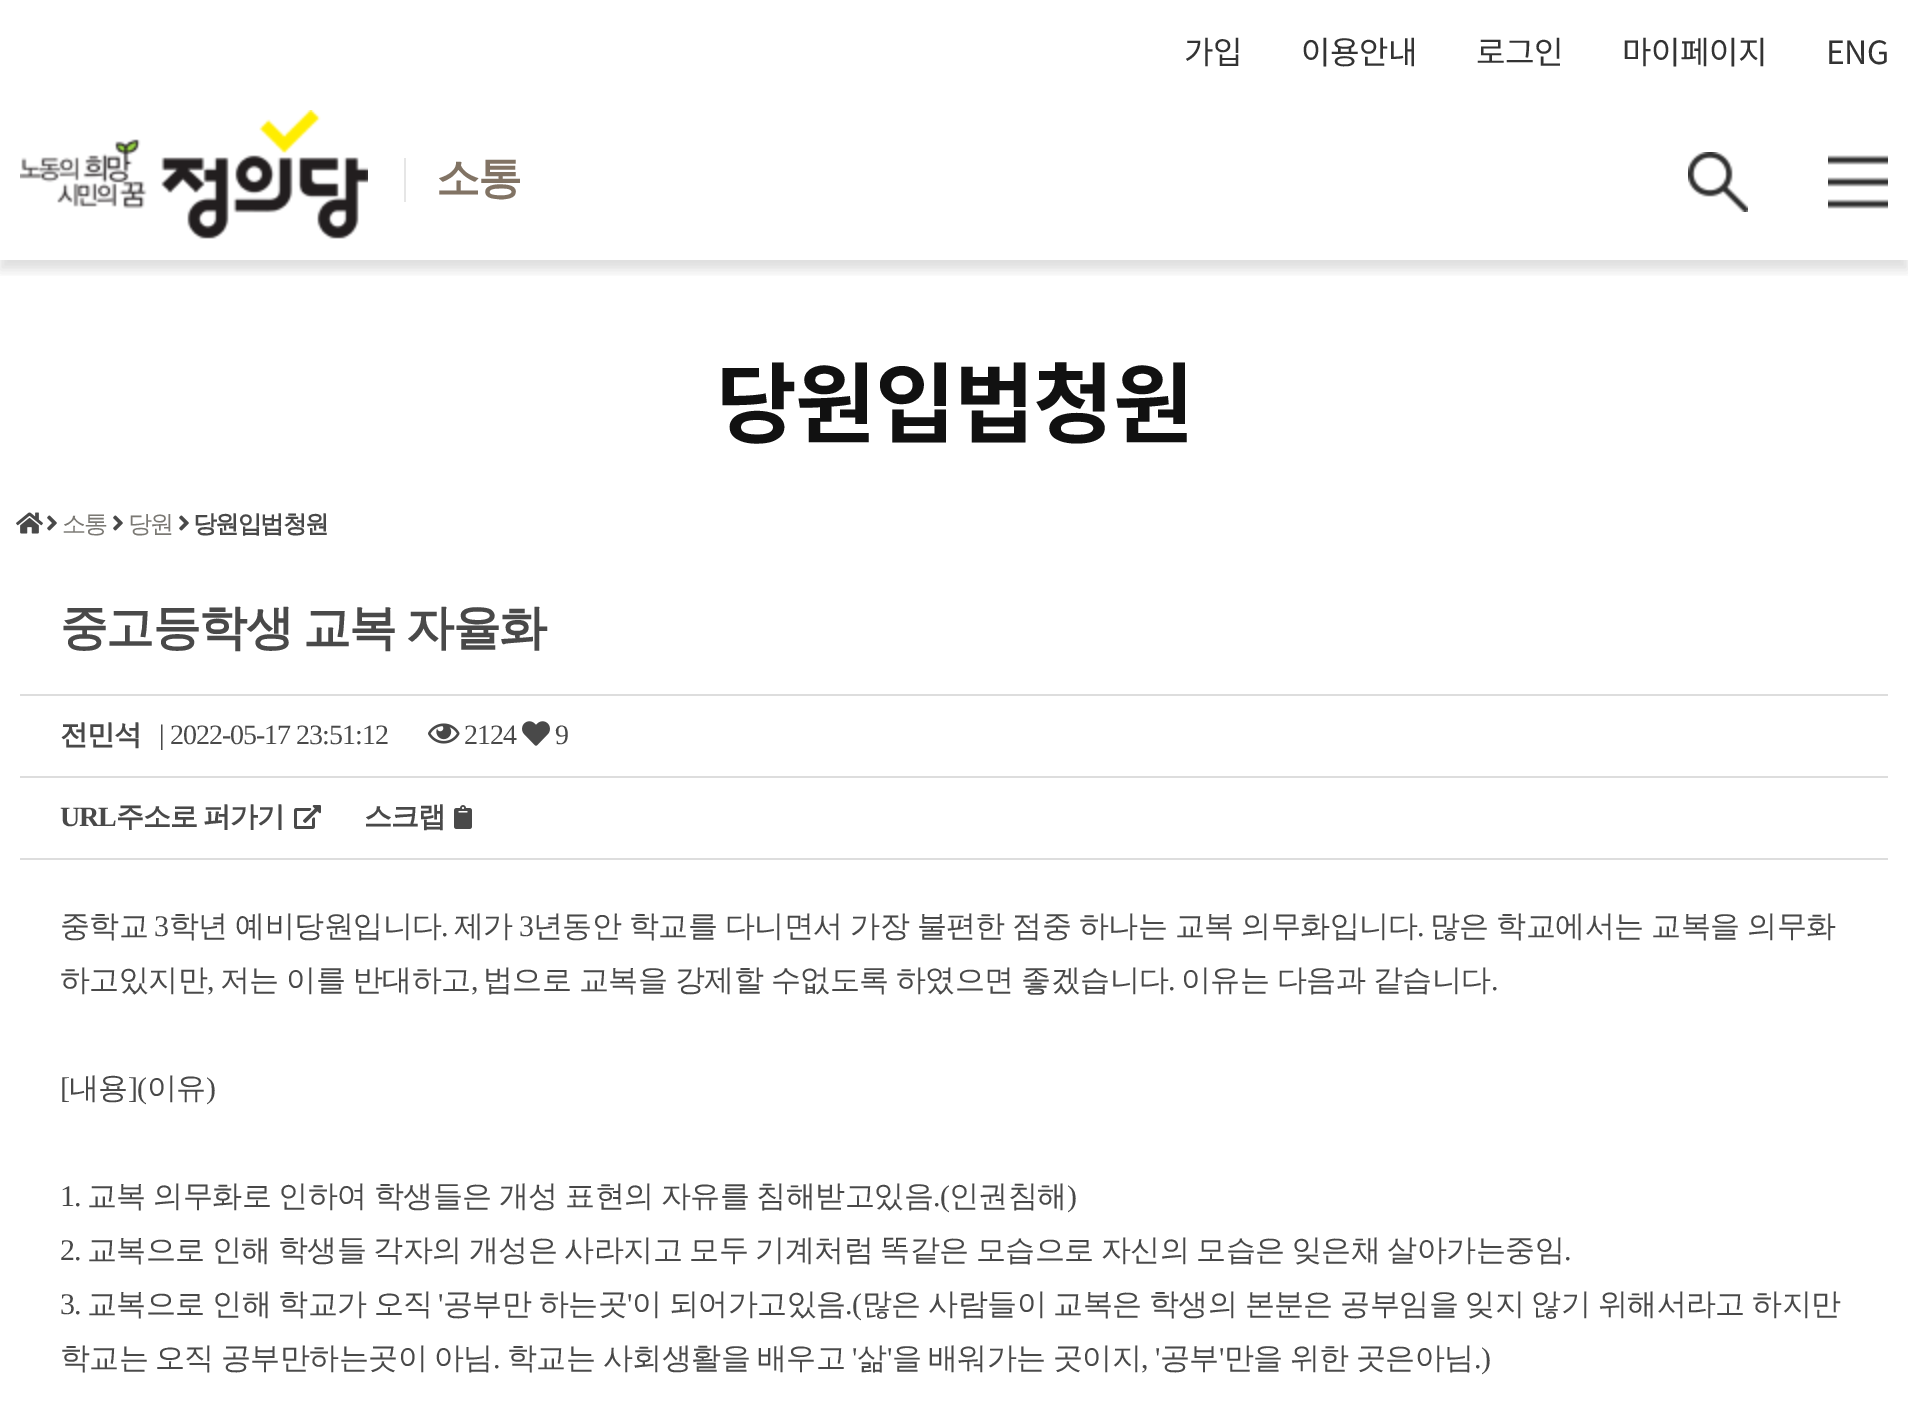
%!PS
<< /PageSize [1908 1410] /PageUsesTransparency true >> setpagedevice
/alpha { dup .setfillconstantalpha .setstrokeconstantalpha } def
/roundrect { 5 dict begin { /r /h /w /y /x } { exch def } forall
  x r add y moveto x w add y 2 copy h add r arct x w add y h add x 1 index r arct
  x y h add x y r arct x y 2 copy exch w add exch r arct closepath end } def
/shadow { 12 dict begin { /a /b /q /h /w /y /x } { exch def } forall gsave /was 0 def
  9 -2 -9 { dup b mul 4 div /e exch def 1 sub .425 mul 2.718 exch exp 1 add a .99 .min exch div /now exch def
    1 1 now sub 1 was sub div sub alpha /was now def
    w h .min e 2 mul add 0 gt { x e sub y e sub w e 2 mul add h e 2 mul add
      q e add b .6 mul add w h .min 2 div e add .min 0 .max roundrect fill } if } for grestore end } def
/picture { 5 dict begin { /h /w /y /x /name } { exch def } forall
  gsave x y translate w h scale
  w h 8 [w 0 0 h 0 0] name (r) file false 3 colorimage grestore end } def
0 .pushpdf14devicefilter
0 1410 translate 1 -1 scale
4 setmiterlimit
1 setgray
0 0 1908 1410 rectfill
/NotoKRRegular-Regular [32 0 0 -32 0 0] selectfont
0.2 setgray
1184 64 moveto -0.5 0 (가입) ashow
1301 64 moveto -0.5 0 (이용안내) ashow
1476 64 moveto -0.5 0 (로그인) ashow
1622 64 moveto -0.5 0 (마이페이지) ashow
1826 64 moveto -0.5 0 (ENG) ashow
gsave
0 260 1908 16 rectclip
0 setgray
0 118 1908 152 0 6 0.12 shadow
grestore
(img1.rgb) 20 110 348 129 picture
0.902 setgray
404 158 2 44 rectfill
/WenQuanYiZenHei-Bold [44 0 0 -44 0 0] selectfont
0.506 0.451 0.392 setrgbcolor
436 193 moveto -1.6 0 (소통) ashow
(img2.rgb) 1688 152 60 60 picture
(img3.rgb) 1828 155 60 54 picture
/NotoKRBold-Bold [88 0 0 -88 0 0] selectfont
0.067 setgray
716 436 moveto -1.6 0 (당원입법청원) ashow
(img4.rgb) 16 512 27 22 picture
(img5.rgb) 47 515 10 16 picture
/WenQuanYiZenHei-Medium [24 0 0 -24 0 0] selectfont
0.478 0.471 0.451 setrgbcolor
62 532 moveto -1.6 0 (소통) ashow
(img5.rgb) 113 515 10 16 picture
128 532 moveto -1.6 0 (당원) ashow
(img5.rgb) 179 515 10 16 picture
/WenQuanYiZenHei-Bold [24 0 0 -24 0 0] selectfont
0.286 setgray
193 532 moveto -1.6 0 (당원입법청원) ashow
0.867 setgray
20 694 1868 2 rectfill
/WenQuanYiZenHei-Bold [48 0 0 -48 0 0] selectfont
0.286 setgray
60 644 moveto -2 0 32 -1.6 0 (중고등학생 교복 자율화) awidthshow
0.867 setgray
20 776 1868 2 rectfill
/WenQuanYiZenHei-Bold [28 0 0 -28 0 0] selectfont
0.286 setgray
60 744 moveto -1 0 (전민석) ashow
/LiberationSerif-Regular [28 0 0 -28 0 0] selectfont
159 744 moveto -1 0 (| 2022-05-17 23:51:12) ashow
(img6.rgb) 428 723 32 21 picture
464 744 moveto -1 0 (2124) ashow
(img7.rgb) 522 721 28 25 picture
555 744 moveto -1 0 (9) ashow
0.867 setgray
20 858 1868 2 rectfill
/LiberationSerif-Bold [28 0 0 -28 0 0] selectfont
0.286 setgray
60 826 moveto -1 0 (URL) ashow
/WenQuanYiZenHei-Bold [28 0 0 -28 0 0] selectfont
116 826 moveto -1.4 0 32 -1 0 (주소로 퍼가기) awidthshow
(img8.rgb) 294 805 27 24 picture
364 826 moveto -1 0 (스크랩) ashow
(img9.rgb) 454 805 18 24 picture
/WenQuanYiZenHei-Medium [30 0 0 -30 0 0] selectfont
60 936 moveto -0.53 0 (중학교) ashow
/LiberationSerif-Regular [30 0 0 -30 0 0] selectfont
154 936 moveto -0.53 0 (3) ashow
/WenQuanYiZenHei-Medium [30 0 0 -30 0 0] selectfont
169 936 moveto -1 0 32 -0.53 0 (학년 예비당원입니다) awidthshow
/LiberationSerif-Regular [30 0 0 -30 0 0] selectfont
441 936 moveto -0.53 0 (.) ashow
/WenQuanYiZenHei-Medium [30 0 0 -30 0 0] selectfont
454 936 moveto -0.53 0 (제가) ashow
/LiberationSerif-Regular [30 0 0 -30 0 0] selectfont
519 936 moveto -0.53 0 (3) ashow
/WenQuanYiZenHei-Medium [30 0 0 -30 0 0] selectfont
533 936 moveto -1 0 32 -0.53 0 (년동안 학교를 다니면서 가장 불편한 점중 하나는 교복 의무화입니다) awidthshow
/LiberationSerif-Regular [30 0 0 -30 0 0] selectfont
1417 936 moveto -0.53 0 (.) ashow
/WenQuanYiZenHei-Medium [30 0 0 -30 0 0] selectfont
1430 936 moveto -1 0 32 -0.53 0 (많은 학교에서는 교복을 의무화) awidthshow
60 990 moveto -0.53 0 (하고있지만) ashow
/LiberationSerif-Regular [30 0 0 -30 0 0] selectfont
207 990 moveto -0.53 0 (,) ashow
/WenQuanYiZenHei-Medium [30 0 0 -30 0 0] selectfont
220 990 moveto -1 0 32 -0.53 0 (저는 이를 반대하고) awidthshow
/LiberationSerif-Regular [30 0 0 -30 0 0] selectfont
471 990 moveto -0.53 0 (,) ashow
/WenQuanYiZenHei-Medium [30 0 0 -30 0 0] selectfont
483 990 moveto -1 0 32 -0.53 0 (법으로 교복을 강제할 수없도록 하였으면 좋겠습니다) awidthshow
/LiberationSerif-Regular [30 0 0 -30 0 0] selectfont
1168 990 moveto -0.53 0 (.) ashow
/WenQuanYiZenHei-Medium [30 0 0 -30 0 0] selectfont
1181 990 moveto -1 0 32 -0.53 0 (이유는 다음과 같습니다) awidthshow
/LiberationSerif-Regular [30 0 0 -30 0 0] selectfont
1491 990 moveto -0.53 0 (.) ashow
60 1098 moveto -0.53 0 ([) ashow
/WenQuanYiZenHei-Medium [30 0 0 -30 0 0] selectfont
69 1098 moveto -0.53 0 (내용) ashow
/LiberationSerif-Regular [30 0 0 -30 0 0] selectfont
128 1098 moveto -0.53 0 (]\() ashow
/WenQuanYiZenHei-Medium [30 0 0 -30 0 0] selectfont
147 1098 moveto -0.53 0 (이유) ashow
/LiberationSerif-Regular [30 0 0 -30 0 0] selectfont
206 1098 moveto -0.53 0 (\)) ashow
60 1206 moveto -0.53 0 (1.) ashow
/WenQuanYiZenHei-Medium [30 0 0 -30 0 0] selectfont
87 1206 moveto -1.25 0 32 -0.53 0 (교복 의무화로 인하여 학생들은 개성 표현의 자유를 침해받고있음) awidthshow
/LiberationSerif-Regular [30 0 0 -30 0 0] selectfont
933 1206 moveto -0.53 0 (.\() ashow
/WenQuanYiZenHei-Medium [30 0 0 -30 0 0] selectfont
949 1206 moveto -0.53 0 (인권침해) ashow
/LiberationSerif-Regular [30 0 0 -30 0 0] selectfont
1067 1206 moveto -0.53 0 (\)) ashow
60 1260 moveto -0.53 0 (2.) ashow
/WenQuanYiZenHei-Medium [30 0 0 -30 0 0] selectfont
87 1260 moveto -1.4 0 32 -0.53 0 (교복으로 인해 학생들 각자의 개성은 사라지고 모두 기계처럼 똑같은 모습으로 자신의 모습은 잊은채 살아가는중임) awidthshow
/LiberationSerif-Regular [30 0 0 -30 0 0] selectfont
1564 1260 moveto -0.53 0 (.) ashow
60 1314 moveto -0.53 0 (3.) ashow
/WenQuanYiZenHei-Medium [30 0 0 -30 0 0] selectfont
87 1314 moveto -1.25 0 32 -0.53 0 (교복으로 인해 학교가 오직) awidthshow
/LiberationSerif-Regular [30 0 0 -30 0 0] selectfont
438 1314 moveto -0.53 0 (') ashow
/WenQuanYiZenHei-Medium [30 0 0 -30 0 0] selectfont
443 1314 moveto -1.25 0 32 -0.53 0 (공부만 하는곳) awidthshow
/LiberationSerif-Regular [30 0 0 -30 0 0] selectfont
627 1314 moveto -0.53 0 (') ashow
/WenQuanYiZenHei-Medium [30 0 0 -30 0 0] selectfont
632 1314 moveto -1.25 0 32 -0.53 0 (이 되어가고있음) awidthshow
/LiberationSerif-Regular [30 0 0 -30 0 0] selectfont
845 1314 moveto -0.53 0 (.\() ashow
/WenQuanYiZenHei-Medium [30 0 0 -30 0 0] selectfont
862 1314 moveto -1.25 0 32 -0.53 0 (많은 사람들이 교복은 학생의 본분은 공부임을 잊지 않기 위해서라고 하지만) awidthshow
60 1368 moveto -0.53 0 (학교는) ashow
155 1368 moveto -0.53 0 (오직) ashow
221 1368 moveto -0.53 0 (공부만하는곳이) ashow
434 1368 moveto -0.53 0 (아님) ashow
507 1368 moveto -0.53 0 (학교는) ashow
603 1368 moveto -0.53 0 (사회생활을) ashow
757 1368 moveto -0.53 0 (배우고) ashow
/LiberationSerif-Regular [30 0 0 -30 0 0] selectfont
852 1368 moveto -0.53 0 (') ashow
/WenQuanYiZenHei-Medium [30 0 0 -30 0 0] selectfont
857 1368 moveto -0.53 0 (삶) ashow
/LiberationSerif-Regular [30 0 0 -30 0 0] selectfont
887 1368 moveto -0.53 0 (') ashow
/WenQuanYiZenHei-Medium [30 0 0 -30 0 0] selectfont
892 1368 moveto -0.53 0 (을) ashow
928 1368 moveto -0.53 0 (배워가는) ashow
1053 1368 moveto -0.53 0 (곳이지) ashow
/LiberationSerif-Regular [30 0 0 -30 0 0] selectfont
1141 1368 moveto -0.53 0 (, ') ashow
/WenQuanYiZenHei-Medium [30 0 0 -30 0 0] selectfont
1160 1368 moveto -0.53 0 (공부) ashow
/LiberationSerif-Regular [30 0 0 -30 0 0] selectfont
1219 1368 moveto -0.53 0 (') ashow
/WenQuanYiZenHei-Medium [30 0 0 -30 0 0] selectfont
1224 1368 moveto -0.53 0 (만을) ashow
1290 1368 moveto -0.53 0 (위한) ashow
1356 1368 moveto -0.53 0 (곳은아님) ashow
/LiberationSerif-Regular [30 0 0 -30 0 0] selectfont
1474 1368 moveto -0.53 0 (.\)) ashow
493 1368 moveto -0.53 0 (.) ashow
.poppdf14devicefilter showpage
